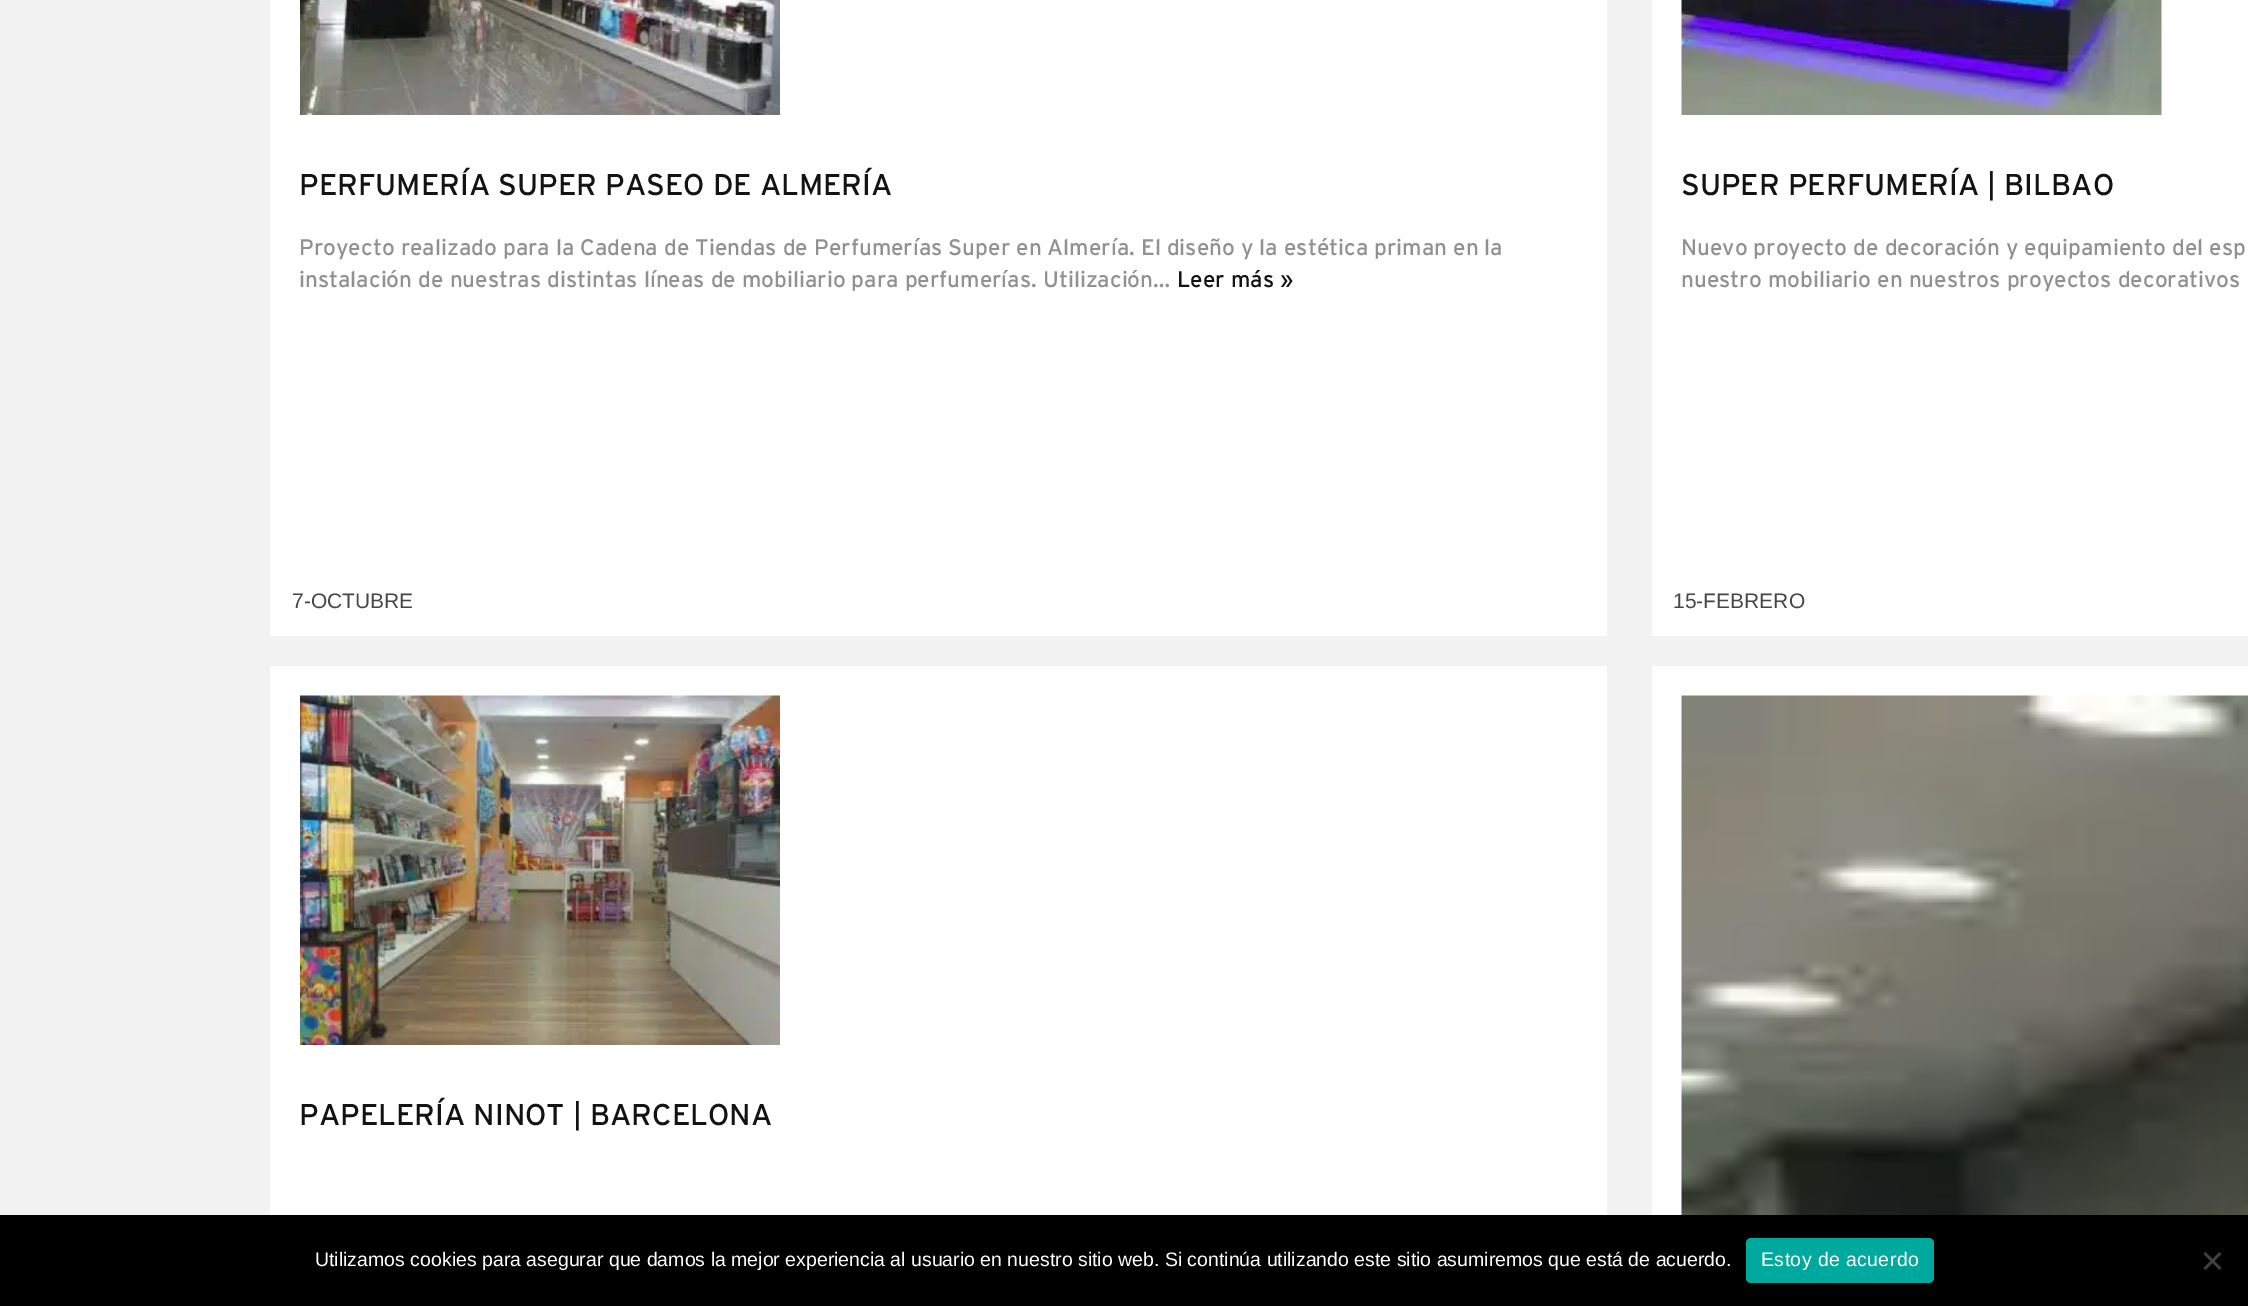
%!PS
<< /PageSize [2248 1306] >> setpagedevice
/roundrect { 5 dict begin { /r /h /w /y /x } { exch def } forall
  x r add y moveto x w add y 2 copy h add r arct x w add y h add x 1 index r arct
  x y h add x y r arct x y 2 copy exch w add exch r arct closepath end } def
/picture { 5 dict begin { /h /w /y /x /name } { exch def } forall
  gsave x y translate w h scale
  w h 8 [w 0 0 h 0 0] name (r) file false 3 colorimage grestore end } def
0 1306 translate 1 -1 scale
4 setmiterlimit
0.949 setgray
0 0 2248 1306 rectfill
1 setgray
270 0 1337 636 rectfill
(img1.rgb) 300 0 480 115 picture
/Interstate-Regular [30 0 0 -30 0 0] selectfont
0.075 setgray
299 195 moveto (PERFUMERÍA SUPER PASEO DE ALMERÍA) show
/Interstate-Regular [22.5 0 0 -22.5 0 0] selectfont
0.569 setgray
299 255 moveto (Proyecto realizado para la Cadena de Tiendas de Perfumerías Super en Almería. El diseño y la estética priman en la) show
299 287 moveto (instalación de nuestras distintas líneas de mobiliario para perfumerías. Utilización…) show
0.075 setgray
1177 287 moveto (Leer más ») show
/LiberationSans-Regular [21 0 0 -21 0 0] selectfont
0.278 setgray
292 608 moveto (7-OCTUBRE) show
1 setgray
1652 0 596 636 rectfill
(img2.rgb) 1681 0 481 115 picture
/Interstate-Regular [30 0 0 -30 0 0] selectfont
0.075 setgray
1681 195 moveto (SUPER PERFUMERÍA | BILBAO) show
/Interstate-Regular [22.5 0 0 -22.5 0 0] selectfont
0.569 setgray
1681 255 moveto (Nuevo proyecto de decoración y equipamiento del esp) show
1681 287 moveto (nuestro mobiliario en nuestros proyectos decorativos) show
/LiberationSans-Regular [21 0 0 -21 0 0] selectfont
0.278 setgray
1673 608 moveto (15-FEBRERO) show
1 setgray
270 666 1337 549 rectfill
(img3.rgb) 300 695 480 350 picture
/Interstate-Regular [30 0 0 -30 0 0] selectfont
0.075 setgray
299 1125 moveto (PAPELERÍA NINOT | BARCELONA) show
1 setgray
1652 666 596 549 rectfill
(img4.rgb) 1681 695 567 520 picture
0 setgray
0 1215 2248 91 rectfill
/LiberationSans-Regular [19.5 0 0 -19.5 0 0] selectfont
1 setgray
315 1266 moveto (Utilizamos cookies para asegurar que damos la mejor experiencia al usuario en nuestro sitio web. Si continúa utilizando este sitio asumiremos que está de acuerdo.) show
0 0.663 0.616 setrgbcolor
1746 1238 188 45 5 roundrect fill
1 setgray
1761 1266 moveto 0.4 0 (Estoy de acuerdo) ashow
0.251 setgray
newpath 2219.5 1252 moveto 2221.5 1254 lineto 2205.5 1270 lineto 2203.5 1268 lineto closepath fill
newpath 2203.5 1254 moveto 2205.5 1252 lineto 2221.5 1268 lineto 2219.5 1270 lineto closepath fill
showpage
